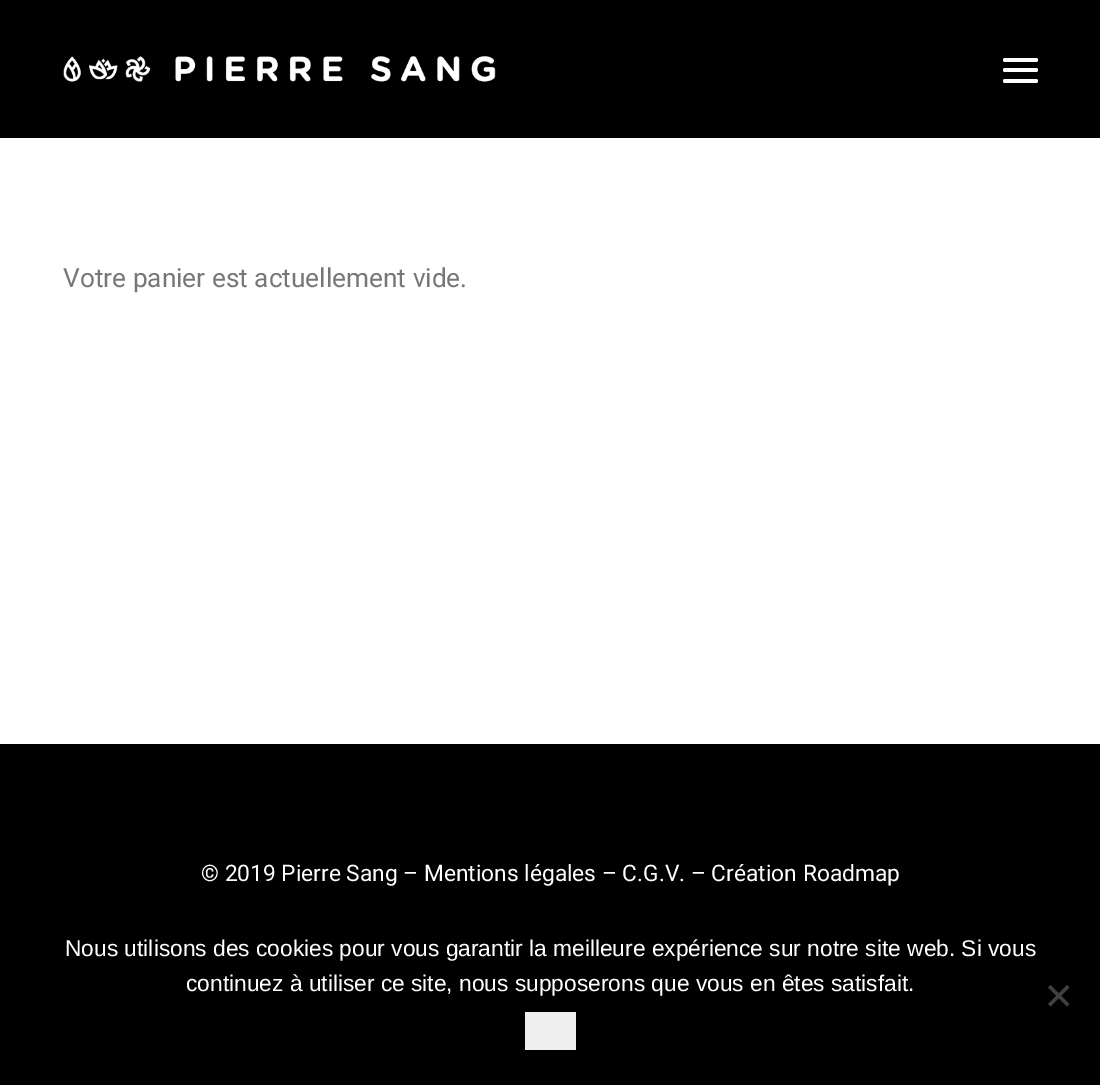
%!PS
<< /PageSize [1100 1085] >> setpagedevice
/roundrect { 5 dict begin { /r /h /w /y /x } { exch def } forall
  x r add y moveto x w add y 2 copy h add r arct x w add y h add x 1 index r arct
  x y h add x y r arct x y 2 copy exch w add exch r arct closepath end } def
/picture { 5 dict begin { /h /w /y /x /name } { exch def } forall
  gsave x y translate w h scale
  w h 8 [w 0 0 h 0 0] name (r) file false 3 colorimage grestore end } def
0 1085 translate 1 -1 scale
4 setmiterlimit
1 setgray
0 0 1100 1085 rectfill
0 setgray
0 0 1100 138 rectfill
(img1.rgb) 63 55 433 27 picture
1 setgray
1003 68 35 4 2 roundrect fill
1003 58 35 4 2 roundrect fill
1003 79 35 4 2 roundrect fill
/Roboto-Regular [26.25 0 0 -26.25 0 0] selectfont
0.467 setgray
63 287 moveto (Votre panier est actuellement vide.) show
0 setgray
0 744 1100 341 rectfill
/Roboto-Regular [22.75 0 0 -22.75 0 0] selectfont
1 setgray
201 881 moveto (© 2019 Pierre Sang – Mentions légales – C.G.V. – Création Roadmap) show
/LiberationSans-Regular [22.75 0 0 -22.75 0 0] selectfont
65 956 moveto (Nous utilisons des cookies pour vous garantir la meilleure expérience sur notre site web. Si vous) show
186 991 moveto (continuez à utiliser ce site, nous supposerons que vous en êtes satisfait.) show
0.251 setgray
newpath 1067 985 moveto 1069.5 987.5 lineto 1050.5 1006.5 lineto 1048 1004 lineto closepath fill
newpath 1048 987.5 moveto 1050.5 985 lineto 1069.5 1004 lineto 1067 1006.5 lineto closepath fill
0.937 setgray
525 1012 51 38 rectfill
showpage
